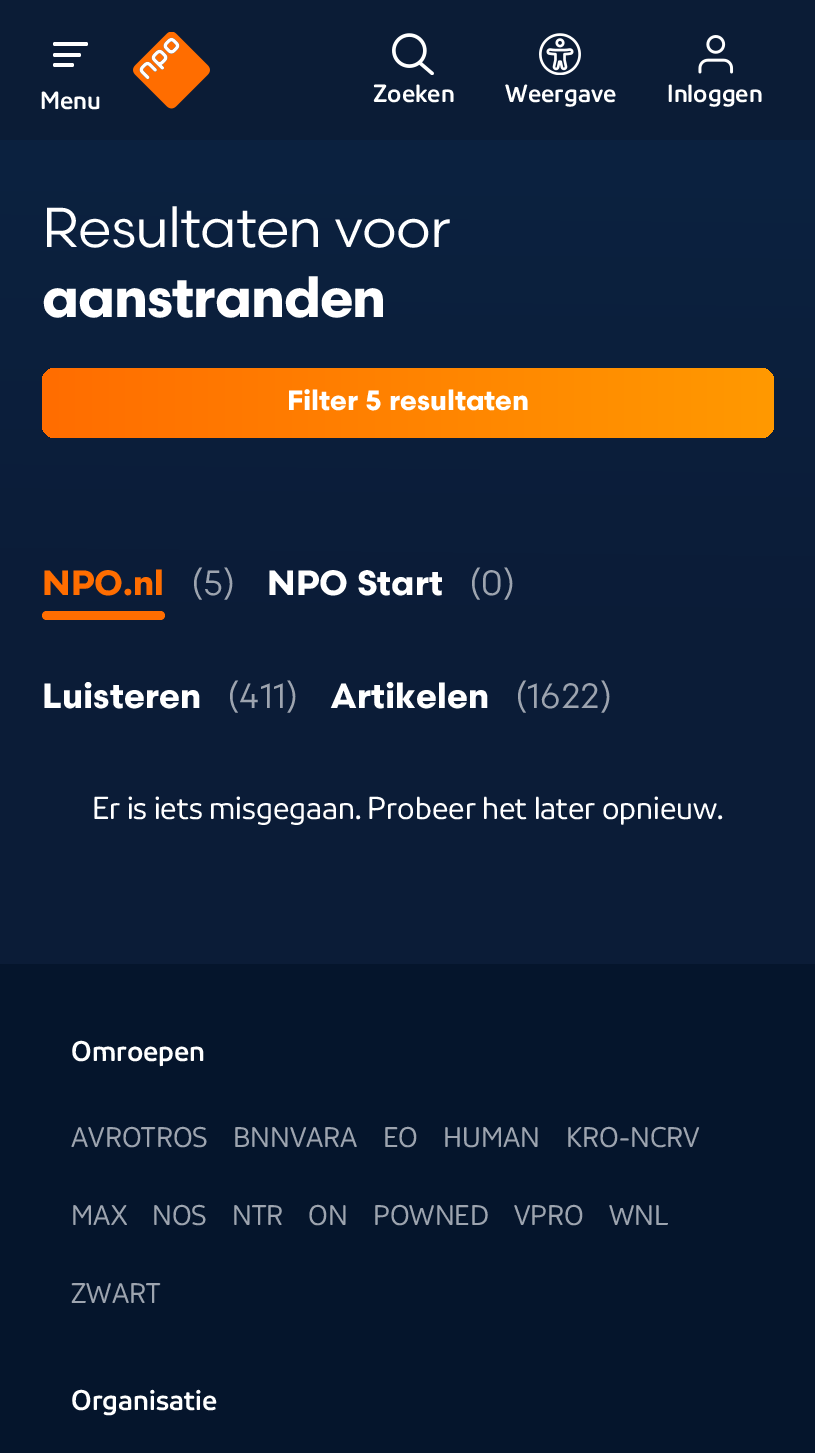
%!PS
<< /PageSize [815 1453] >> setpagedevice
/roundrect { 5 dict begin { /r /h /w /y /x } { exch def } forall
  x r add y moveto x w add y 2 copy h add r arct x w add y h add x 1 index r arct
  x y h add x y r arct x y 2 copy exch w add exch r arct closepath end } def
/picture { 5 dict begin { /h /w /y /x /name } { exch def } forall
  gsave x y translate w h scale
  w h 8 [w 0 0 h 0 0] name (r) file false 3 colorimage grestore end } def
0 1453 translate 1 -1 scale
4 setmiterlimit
1 setgray
0 0 815 1453 rectfill
0.043 0.11 0.212 setrgbcolor
0 0 815 140 rectfill
1 setgray
53 42 35 4 2 roundrect fill
53 53 28 4 2 roundrect fill
53 63 21 4 2 roundrect fill
/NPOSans-Bold [24.5 0 0 -24.5 0 0] selectfont
40 109 moveto (Menu) show
(img1.rgb) 133 32 77 77 picture
(img2.rgb) 392 33 42 42 picture
373 102 moveto (Zoeken) show
(img3.rgb) 539 33 42 42 picture
505 102 moveto (Weergave) show
(img4.rgb) 698 35 36 39 picture
667 102 moveto (Inloggen) show
gsave newpath 0 140 moveto 815 140 lineto 815 964 lineto 0 964 lineto closepath clip newpath
<< /ShadingType 2 /ColorSpace /DeviceRGB /Coords [400 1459 416 -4.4] /Extend [true true] /Function << /FunctionType 3 /Domain [0 1] /Functions [<< /FunctionType 2 /Domain [0 1] /C0 [0.043 0.11 0.216] /C1 [0.043 0.11 0.216] /N 1 >> << /FunctionType 2 /Domain [0 1] /C0 [0.043 0.11 0.216] /C1 [0.047 0.137 0.259] /N 1 >> << /FunctionType 2 /Domain [0 1] /C0 [0.047 0.137 0.259] /C1 [0.047 0.137 0.259] /N 1 >>] /Bounds [0.56 0.99] /Encode [0 1 0 1 0 1] >> >> shfill grestore
/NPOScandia-Regular [56 0 0 -56 0 0] selectfont
42 247 moveto -1.1 0 (Resultaten voor) ashow
/NPOScandia-Bold [56 0 0 -56 0 0] selectfont
42 317 moveto -1.1 0 (aanstranden) ashow
gsave 42 368 732 70 14 roundrect clip newpath
<< /ShadingType 2 /ColorSpace /DeviceRGB /Coords [42 403 774 403] /Extend [true true] /Function << /FunctionType 2 /Domain [0 1] /C0 [1 0.427 0] /C1 [1 0.6 0] /N 1 >> >> shfill grestore
/NPOScandia-Bold [28 0 0 -28 0 0] selectfont
287 410 moveto (Filter 5 resultaten) show
/NPOScandia-Bold [35 0 0 -35 0 0] selectfont
1 0.427 0 setrgbcolor
42 595 moveto (NPO.nl) show
42 611 123 9 4.5 roundrect fill
/NPOScandia-Regular [35 0 0 -35 0 0] selectfont
0.616 0.643 0.686 setrgbcolor
191 595 moveto (\() show
203 595 moveto (5\)) show
/NPOScandia-Bold [35 0 0 -35 0 0] selectfont
1 setgray
267 595 moveto (NPO Start) show
/NPOScandia-Regular [35 0 0 -35 0 0] selectfont
0.616 0.643 0.686 setrgbcolor
469 595 moveto (\(0\)) show
/NPOScandia-Bold [35 0 0 -35 0 0] selectfont
1 setgray
42 708 moveto (Luisteren) show
/NPOScandia-Regular [35 0 0 -35 0 0] selectfont
0.616 0.643 0.686 setrgbcolor
227 708 moveto (\(411\)) show
/NPOScandia-Bold [35 0 0 -35 0 0] selectfont
1 setgray
330 708 moveto (Artikelen) show
/NPOScandia-Regular [35 0 0 -35 0 0] selectfont
0.616 0.643 0.686 setrgbcolor
515 708 moveto (\(1622\)) show
/NPOSans-Regular [31.5 0 0 -31.5 0 0] selectfont
1 setgray
92 819 moveto (Er is iets misgegaan. Probeer het later opnieuw.) show
0.02 0.082 0.173 setrgbcolor
0 964 815 489 rectfill
/NPOSans-Bold [28 0 0 -28 0 0] selectfont
1 setgray
71 1061 moveto (Omroepen) show
/NPOSans-Regular [28 0 0 -28 0 0] selectfont
0.616 0.643 0.686 setrgbcolor
71 1147 moveto (AVROTROS) show
233 1147 moveto (BNNVARA) show
383 1147 moveto (EO) show
443 1147 moveto (HUMAN) show
566 1147 moveto (KRO-NCRV) show
71 1225 moveto (MAX) show
152 1225 moveto (NOS) show
232 1225 moveto (NTR) show
308 1225 moveto (ON) show
373 1225 moveto (POWNED) show
514 1225 moveto (VPRO) show
609 1225 moveto (WNL) show
71 1303 moveto (ZWART) show
/NPOSans-Bold [28 0 0 -28 0 0] selectfont
1 setgray
71 1410 moveto (Organisatie) show
showpage
